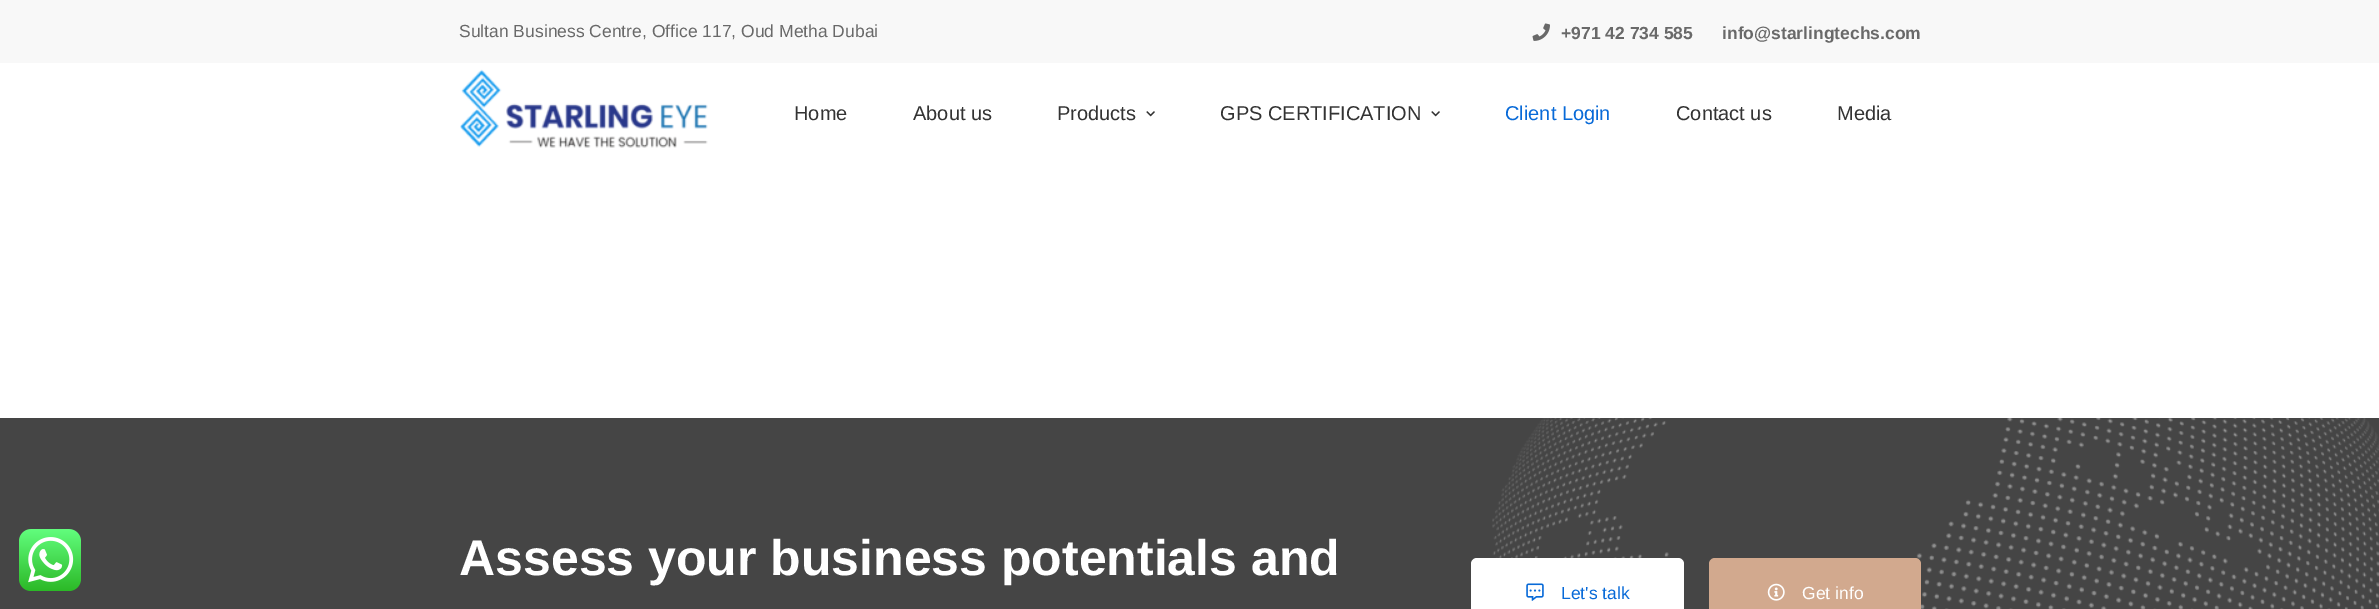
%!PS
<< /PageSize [2379 609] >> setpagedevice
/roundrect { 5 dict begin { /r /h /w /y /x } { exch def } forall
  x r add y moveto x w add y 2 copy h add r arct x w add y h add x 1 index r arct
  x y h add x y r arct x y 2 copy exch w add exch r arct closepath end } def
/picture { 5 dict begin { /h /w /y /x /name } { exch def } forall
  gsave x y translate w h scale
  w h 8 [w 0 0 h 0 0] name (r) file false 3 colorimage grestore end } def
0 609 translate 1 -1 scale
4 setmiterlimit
1 setgray
0 0 2379 609 rectfill
0.271 setgray
0 418 2379 191 rectfill
(img1.rgb) 19 529 62 62 picture
0.973 setgray
0 0 2379 63 rectfill
/LiberationSans-Regular [17.5 0 0 -17.5 0 0] selectfont
0.412 setgray
459 37 moveto (Sultan Business Centre, Office 117, Oud Metha Dubai) show
(img2.rgb) 1532 23 18 18 picture
/LiberationSans-Bold [17.5 0 0 -17.5 0 0] selectfont
1561 39 moveto (+971 42 734 585) show
1722 39 moveto (info@starlingtechs.com) show
(img3.rgb) 460 69 248 79 picture
/LiberationSans-Regular [20 0 0 -20 0 0] selectfont
0.2 setgray
794 120 moveto (Home) show
913 120 moveto (About us) show
1057 120 moveto (Products) show
(img4.rgb) 1146 111 9 6 picture
1220 120 moveto (GPS CERTIFICATION) show
(img4.rgb) 1431 111 9 6 picture
0.031 0.416 0.847 setrgbcolor
1505 120 moveto (Client Login) show
0.2 setgray
1676 120 moveto (Contact us) show
1837 120 moveto (Media) show
(img5.rgb) 1492 418 887 191 picture
/LiberationSans-Bold [50 0 0 -50 0 0] selectfont
1 setgray
459 575 moveto (Assess your business potentials and) show
1471 558 213 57 6 roundrect fill
(img6.rgb) 1526 583 18 18 picture
/LiberationSans-Regular [17.5 0 0 -17.5 0 0] selectfont
0.031 0.416 0.847 setrgbcolor
1561 599 moveto (Let's talk) show
0.824 0.663 0.557 setrgbcolor
1709 558 212 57 6 roundrect fill
(img7.rgb) 1767 583 18 18 picture
1 setgray
1802 599 moveto (Get info) show
showpage
